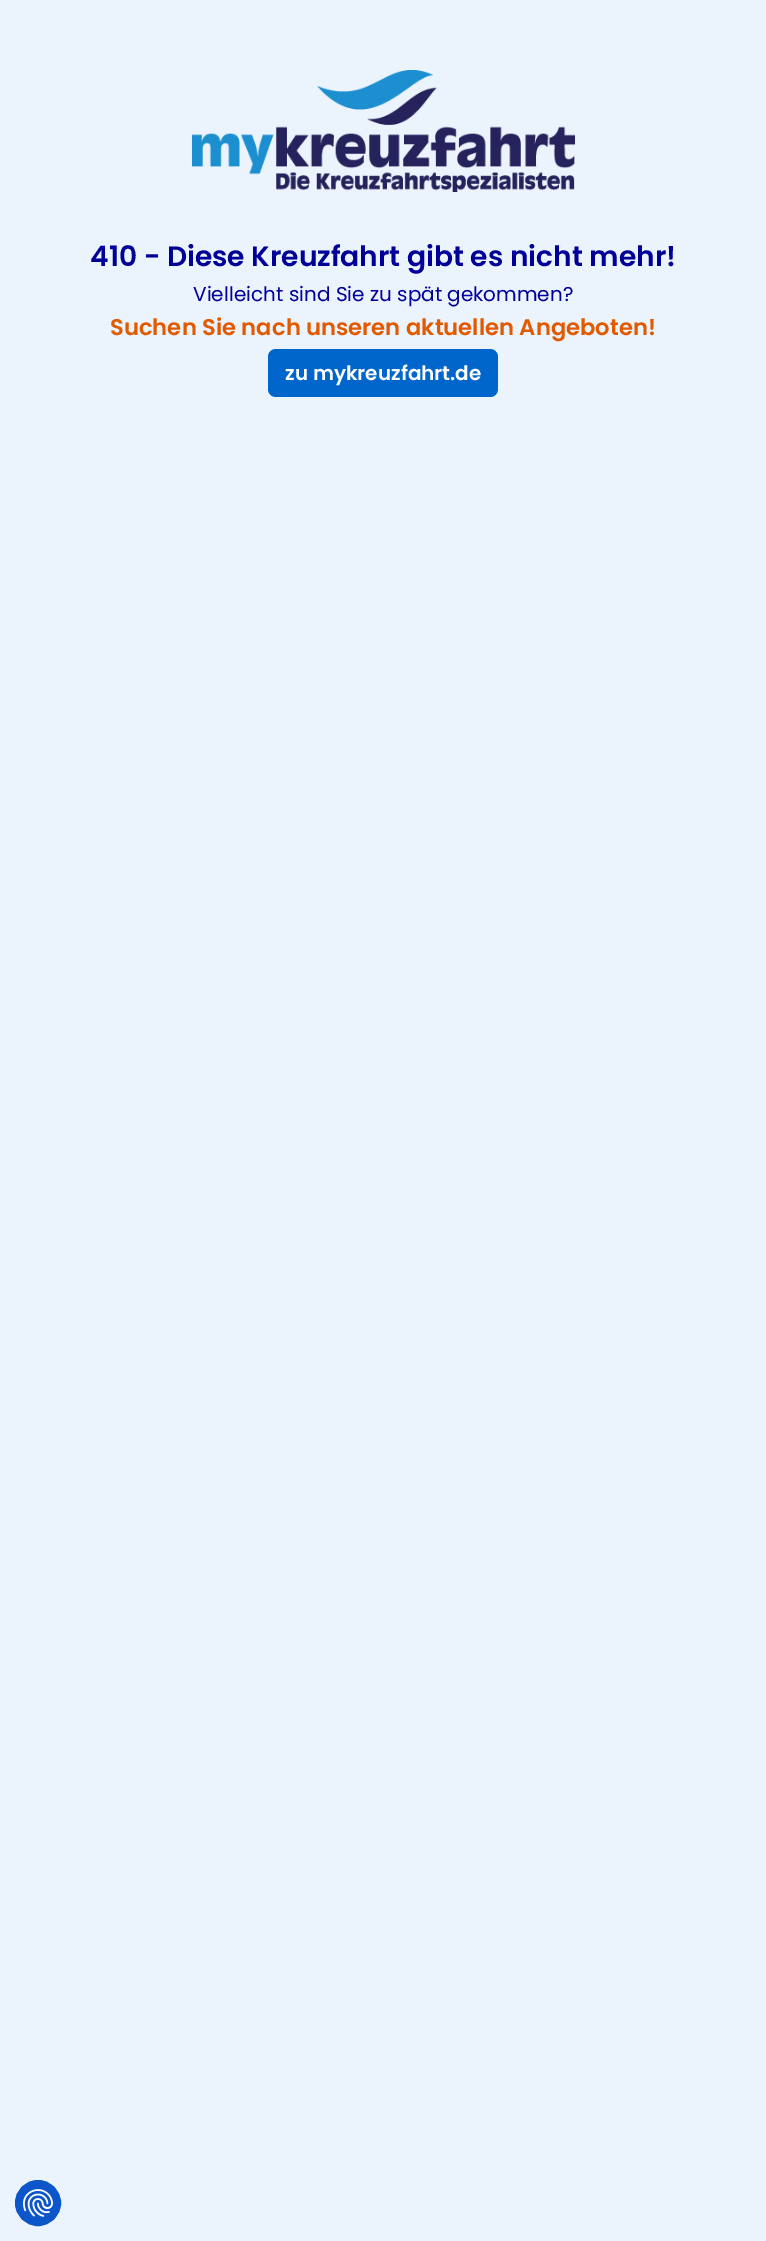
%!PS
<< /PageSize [766 2241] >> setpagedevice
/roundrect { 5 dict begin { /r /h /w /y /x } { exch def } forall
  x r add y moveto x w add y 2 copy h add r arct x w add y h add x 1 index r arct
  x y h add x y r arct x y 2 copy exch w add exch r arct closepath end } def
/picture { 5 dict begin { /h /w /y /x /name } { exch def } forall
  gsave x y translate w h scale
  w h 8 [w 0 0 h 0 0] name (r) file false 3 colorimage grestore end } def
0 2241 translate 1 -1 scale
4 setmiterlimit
0.922 0.953 0.988 setrgbcolor
0 0 766 2241 rectfill
(img1.rgb) 192 70 383 122 picture
/Poppins-SemiBold [28.1 0 0 -28.1 0 0] selectfont
0 0 0.6 setrgbcolor
90 266 moveto (410 - Diese Kreuzfahrt gibt es nicht mehr!) show
/Poppins-Regular [20 0 0 -20 0 0] selectfont
193 301 moveto (Vielleicht sind Sie zu spät gekommen?) show
/Poppins-SemiBold [22.7 0 0 -22.7 0 0] selectfont
0.882 0.353 0 setrgbcolor
110 335 moveto (Suchen Sie nach unseren aktuellen Angeboten!) show
0 0.4 0.8 setrgbcolor
268 349 230 48 8 roundrect fill
/Poppins-SemiBold [20 0 0 -20 0 0] selectfont
1 setgray
285 380 moveto (zu mykreuzfahrt.de) show
0.051 0.337 0.788 setrgbcolor
newpath 38 2203 22.5 0 360 arc closepath gsave fill grestore
stroke
(img2.rgb) 23 2189 30 28 picture
showpage
